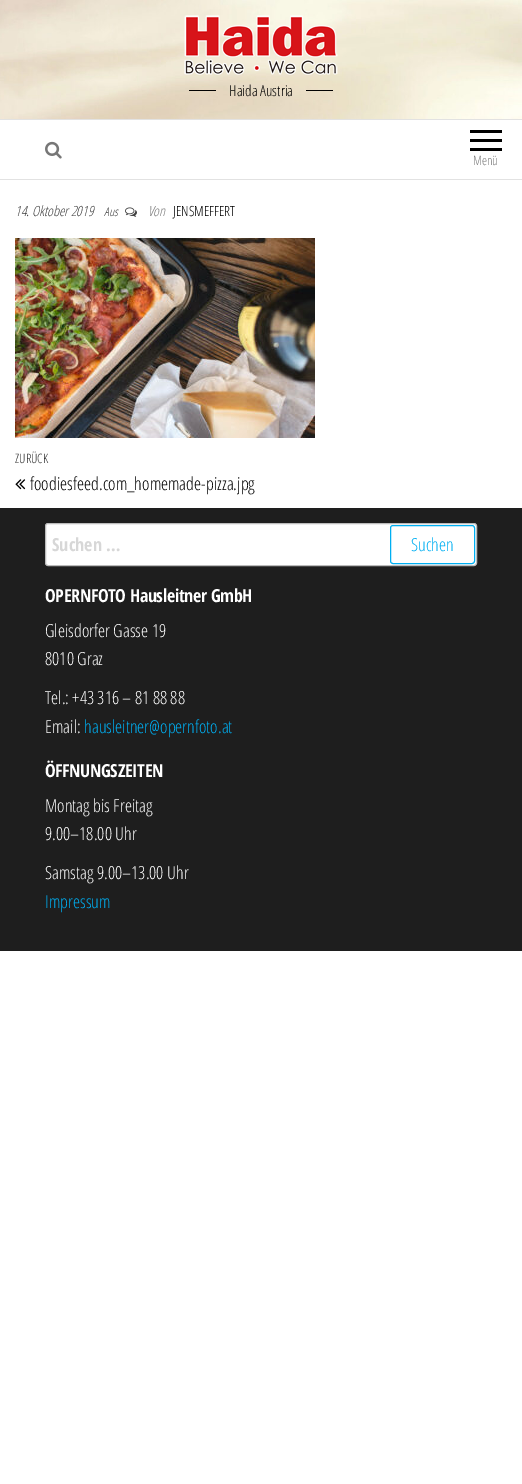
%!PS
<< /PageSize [522 1484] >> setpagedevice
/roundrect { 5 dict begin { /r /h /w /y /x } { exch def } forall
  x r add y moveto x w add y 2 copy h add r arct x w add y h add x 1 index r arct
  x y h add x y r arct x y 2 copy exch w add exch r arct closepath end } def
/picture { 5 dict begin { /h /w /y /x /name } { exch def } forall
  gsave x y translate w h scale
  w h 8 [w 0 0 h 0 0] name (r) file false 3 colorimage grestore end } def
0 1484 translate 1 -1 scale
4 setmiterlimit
1 setgray
0 0 522 1484 rectfill
(img1.rgb) 0 0 522 119 picture
(img2.rgb) 184 15 154 60 picture
0.008 setgray
189 90 27 1 rectfill
/OpenSansCondensed-Light [15 0 0 -15 0 0] selectfont
0 setgray
229 96 moveto (Haida Austria) show
0.008 setgray
306 90 27 1 rectfill
0.886 setgray
0 119 522 1 rectfill
0 179 522 1 rectfill
(img3.rgb) 45 141 17 18 picture
0 setgray
470 130 32 3 rectfill
470 139 32 3 rectfill
470 148 32 3 rectfill
/OpenSansCondensed-Light [13 0 0 -13 0 0] selectfont
0.467 setgray
473 165 moveto (Menü) show
/OpenSansCondensed-LightItalic [14 0 0 -14 0 0] selectfont
0.251 setgray
15 216 moveto (14. Oktober 2019) show
/OpenSansCondensed-LightItalic [12 0 0 -12 0 0] selectfont
104 216 moveto (Aus) show
(img4.rgb) 125 207 12 10 picture
/OpenSansCondensed-LightItalic [14 0 0 -14 0 0] selectfont
0.467 setgray
148 216 moveto (Von) show
/OpenSansCondensed-Light [14 0 0 -14 0 0] selectfont
0 setgray
173 216 moveto (JENSMEFFERT) show
(img5.rgb) 15 238 300 200 picture
/OpenSansCondensed-Light [13 0 0 -13 0 0] selectfont
0.2 setgray
15 463 moveto (ZURÜCK) show
(img6.rgb) 15 479 11 11 picture
/OpenSansCondensed-Light [18 0 0 -18 0 0] selectfont
0 setgray
30 490 moveto (foodiesfeed.com_homemade-pizza.jpg) show
0.118 setgray
0 508 522 443 rectfill
1 setgray
45.5 523.5 431 42 2.5 roundrect gsave fill grestore
0.733 setgray
stroke
/OpenSansCondensed-Bold [18 0 0 -18 0 0] selectfont
0.843 setgray
52 551 moveto (Suchen …) show
0 0.686 0.949 setrgbcolor
390.5 525.5 84 38 2.5 roundrect stroke
/OpenSansCondensed-Light [18 0 0 -18 0 0] selectfont
411 551 moveto (Suchen) show
/OpenSansCondensed-Bold [18 0 0 -18 0 0] selectfont
1 setgray
45 602 moveto -0.35 0 (OPERNFOTO Hausleitner GmbH) ashow
/OpenSansCondensed-Light [18 0 0 -18 0 0] selectfont
45 637 moveto (Gleisdorfer Gasse 19) show
45 665 moveto (8010 Graz) show
45 704 moveto (Tel.: +43 316 – 81 88 88) show
45 733 moveto (Email:) show
0 0.686 0.949 setrgbcolor
84 733 moveto (hausleitner@opernfoto.at) show
/OpenSansCondensed-Bold [18 0 0 -18 0 0] selectfont
1 setgray
45 777 moveto -0.35 0 (ÖFFNUNGSZEITEN) ashow
/OpenSansCondensed-Light [18 0 0 -18 0 0] selectfont
45 812 moveto (Montag bis Freitag) show
45 840 moveto (9.00–18.00 Uhr) show
45 879 moveto (Samstag 9.00–13.00 Uhr) show
0 0.686 0.949 setrgbcolor
45 908 moveto (Impressum) show
showpage
